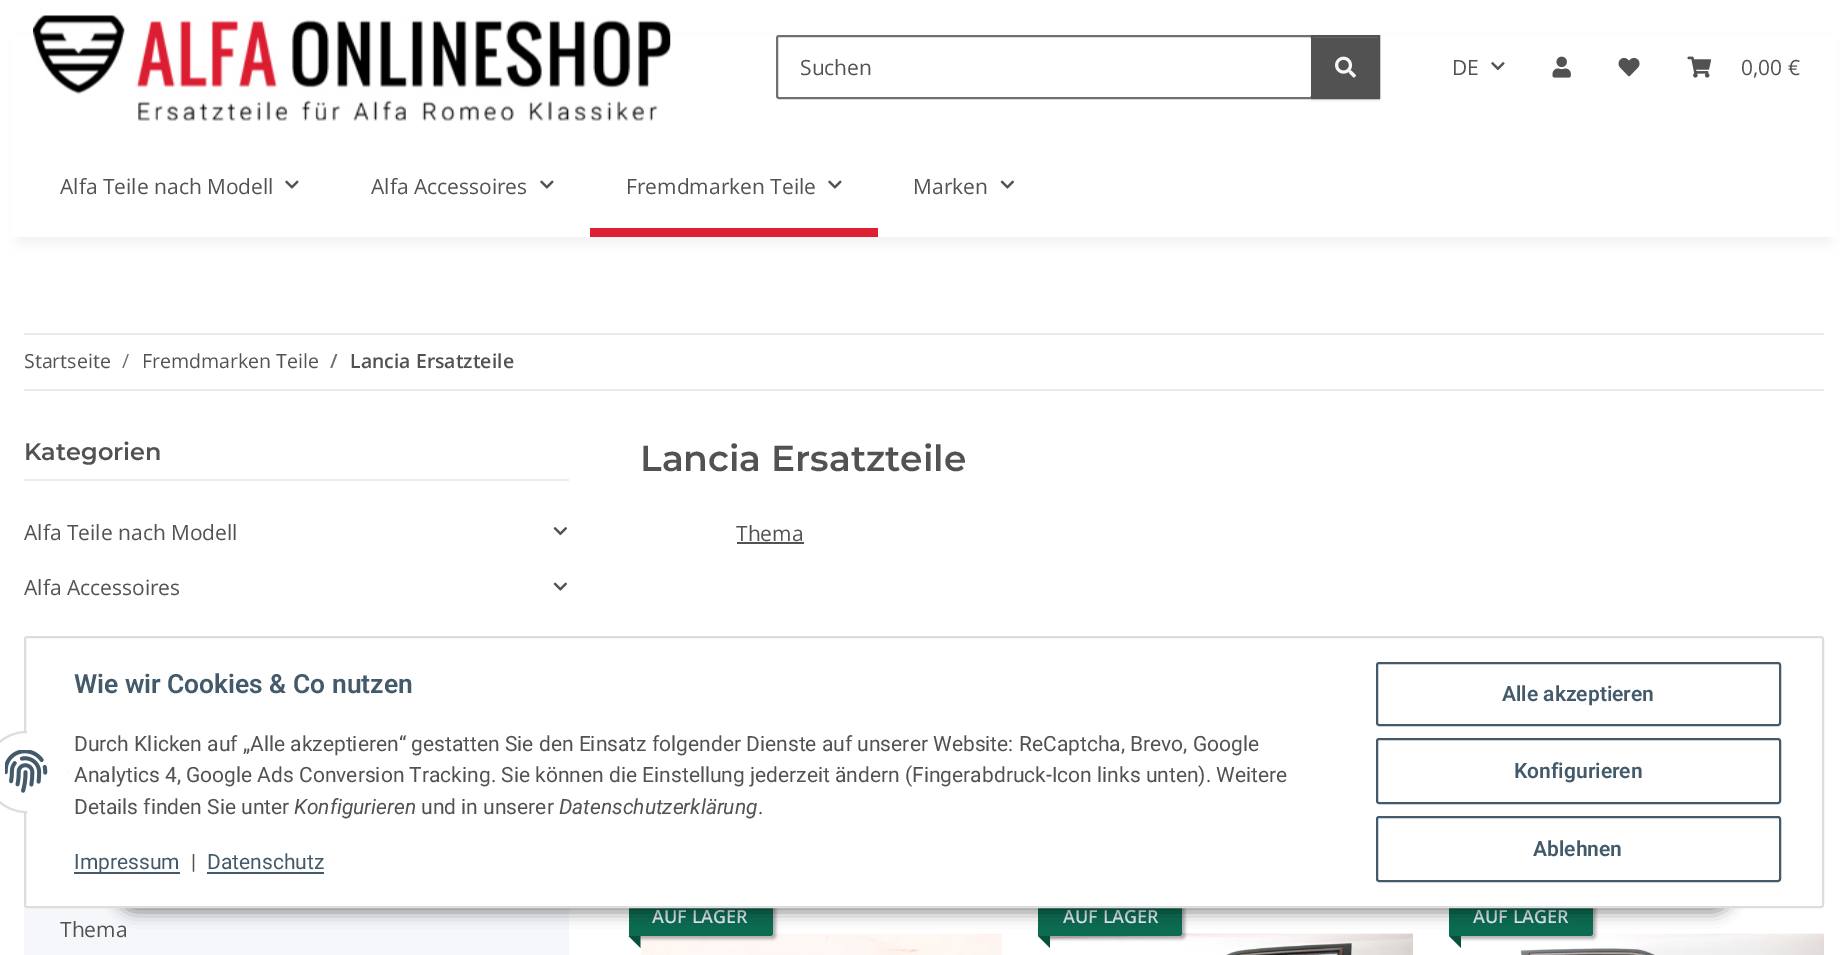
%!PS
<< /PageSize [1848 955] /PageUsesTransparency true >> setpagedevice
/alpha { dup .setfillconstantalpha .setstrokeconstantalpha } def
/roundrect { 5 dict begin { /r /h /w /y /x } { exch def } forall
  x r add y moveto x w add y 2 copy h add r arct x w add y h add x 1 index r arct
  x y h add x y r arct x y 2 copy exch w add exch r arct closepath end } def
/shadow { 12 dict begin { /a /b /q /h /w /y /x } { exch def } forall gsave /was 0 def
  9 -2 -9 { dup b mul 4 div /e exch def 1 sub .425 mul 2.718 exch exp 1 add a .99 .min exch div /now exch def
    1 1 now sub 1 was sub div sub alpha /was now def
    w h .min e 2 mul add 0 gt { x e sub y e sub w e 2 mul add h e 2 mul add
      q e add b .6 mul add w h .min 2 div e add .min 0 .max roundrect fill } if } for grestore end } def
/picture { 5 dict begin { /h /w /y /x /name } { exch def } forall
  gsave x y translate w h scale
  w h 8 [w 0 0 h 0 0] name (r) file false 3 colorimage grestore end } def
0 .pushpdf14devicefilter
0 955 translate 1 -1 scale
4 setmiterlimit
1 setgray
0 0 1848 955 rectfill
0 setgray
18 42 1812 201 0 7 0.06 shadow
1 setgray
11 35 1826 202 rectfill
(img1.rgb) 33 15 638 106 picture
0.439 setgray
2 setlinewidth
777 36 535 62 2 roundrect stroke
/OpenSans-Regular [21 0 0 -21 0 0] selectfont
0.322 setgray
800 75 moveto (Suchen) show
0 setgray
1311 36 69 65 0 1 0.07 shadow
0.322 setgray
1313 38 65 59 rectfill
0.424 setgray
1313 37 66 1 rectfill
0.322 setgray
1312 36 67 62 rectstroke
(img2.rgb) 1335 56 21 22 picture
1452 75 moveto (DE) show
(img3.rgb) 1491 62 14 9 picture
(img4.rgb) 1552 56 19 22 picture
(img5.rgb) 1618 57 22 20 picture
(img6.rgb) 1687 56 25 22 picture
1741 75 moveto (0,00 €) show
60 194 moveto (Alfa Teile nach Modell) show
(img7.rgb) 285 180 14 9 picture
371 194 moveto (Alfa Accessoires) show
(img7.rgb) 540 180 14 9 picture
626 194 moveto (Fremdmarken Teile) show
(img7.rgb) 828 180 14 9 picture
0.871 0.118 0.2 setrgbcolor
590 228 288 9 rectfill
0.322 setgray
913 194 moveto (Marken) show
(img8.rgb) 1000 180 14 9 picture
0.922 setgray
24 333 1800 2 rectfill
24 389 1800 2 rectfill
/OpenSans-Regular [19.5 0 0 -19.5 0 0] selectfont
0.322 setgray
24 368 moveto (Startseite) show
0.439 setgray
122 368 moveto (/) show
0.322 setgray
142 368 moveto (Fremdmarken Teile) show
/OpenSans-SemiBold [19.5 0 0 -19.5 0 0] selectfont
0.439 setgray
330 368 moveto (/) show
0.322 setgray
350 368 moveto (Lancia Ersatzteile) show
0.922 setgray
24 479 545 2 rectfill
/Montserrat-SemiBold [24 0 0 -24 0 0] selectfont
0.322 setgray
24 460 moveto (Kategorien) show
/OpenSans-Regular [21 0 0 -21 0 0] selectfont
24 540 moveto (Alfa Teile nach Modell) show
(img9.rgb) 553 527 15 9 picture
24 595 moveto (Alfa Accessoires) show
(img8.rgb) 553 582 14 9 picture
0.961 0.969 0.98 setrgbcolor
24 905 545 50 rectfill
0.322 setgray
60 937 moveto (Thema) show
/Montserrat-SemiBold [36 0 0 -36 0 0] selectfont
640 471 moveto (Lancia Ersatzteile) show
/OpenSans-Regular [21 0 0 -21 0 0] selectfont
736 541 moveto (Thema) show
737 542 67 2 rectfill
(img10.rgb) 641 933 361 22 picture
0 setgray
632 900 144 39 3 1.5 0.3 shadow
0.043 0.424 0.318 setrgbcolor
newpath 629 897 moveto 770 897 lineto 771.5 897 773 898.5 773 900 curveto 773 933 lineto 773 934.5 771.5 936 770 936 curveto 629 936 lineto closepath fill
/OpenSans-SemiBold [18 0 0 -18 0 0] selectfont
0.882 0.906 0.941 setrgbcolor
652 923 moveto (AUF LAGER) show
0.031 0.314 0.235 setrgbcolor
newpath 640.5 936 moveto 640.5 948 lineto 628.5 936 lineto closepath fill
(img11.rgb) 1050 933 363 22 picture
0 setgray
1041 900 144 39 3 1.5 0.3 shadow
0.043 0.424 0.318 setrgbcolor
newpath 1038 897 moveto 1179 897 lineto 1180.5 897 1182 898.5 1182 900 curveto 1182 933 lineto 1182 934.5 1180.5 936 1179 936 curveto 1038 936 lineto closepath fill
0.882 0.906 0.941 setrgbcolor
1063 923 moveto (AUF LAGER) show
0.031 0.314 0.235 setrgbcolor
newpath 1050 936 moveto 1050 948 lineto 1038 936 lineto closepath fill
(img12.rgb) 1520 933 304 22 picture
0 setgray
1452 900 144 39 3 1.5 0.3 shadow
0.043 0.424 0.318 setrgbcolor
newpath 1449 897 moveto 1590 897 lineto 1591.5 897 1593 898.5 1593 900 curveto 1593 933 lineto 1593 934.5 1591.5 936 1590 936 curveto 1449 936 lineto closepath fill
0.882 0.906 0.941 setrgbcolor
1473 923 moveto (AUF LAGER) show
0.031 0.314 0.235 setrgbcolor
newpath 1461 936 moveto 1461 948 lineto 1449 936 lineto closepath fill
0 setgray
116 864 1617 48 24 7.5 0.45 shadow
1 setgray
25 637 1798 270 2 roundrect gsave fill grestore
0.867 setgray
stroke
1 setgray
-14 732 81 80 40 roundrect gsave fill grestore
0.867 setgray
stroke
1 setgray
27 731 41 82 rectfill
(img13.rgb) 5 750 43 43 picture
/Roboto-SemiBold [26.4 0 0 -26.4 0 0] selectfont
0.263 0.353 0.42 setrgbcolor
74 693 moveto (Wie wir Cookies & Co nutzen) show
/Roboto-Regular [21 0 0 -21 0 0] selectfont
0.322 setgray
74 751 moveto (Durch Klicken auf „Alle akzeptieren“ gestatten Sie den Einsatz folgender Dienste auf unserer Website: ReCaptcha, Brevo, Google) show
74 782 moveto (Analytics 4, Google Ads Conversion Tracking. Sie können die Einstellung jederzeit ändern \(Fingerabdruck-Icon links unten\). Weitere) show
74 814 moveto (Details finden Sie unter) show
/Roboto-Italic [21 0 0 -21 0 0] selectfont
294 814 moveto (Konfigurieren) show
/Roboto-Regular [21 0 0 -21 0 0] selectfont
421 814 moveto (und in unserer) show
/Roboto-Italic [21 0 0 -21 0 0] selectfont
559 814 moveto (Datenschutzerklärung) show
/Roboto-Regular [21 0 0 -21 0 0] selectfont
758 814 moveto (.) show
0.263 0.353 0.42 setrgbcolor
74 872 106 2 rectfill
74 869 moveto (Impressum) show
0.322 setgray
191 869 moveto (|) show
0.263 0.353 0.42 setrgbcolor
207 869 moveto (Datenschutz) show
207 872 117 2 rectfill
1377 663 403 62 2 roundrect stroke
/Roboto-SemiBold [21 0 0 -21 0 0] selectfont
1502 701 moveto (Alle akzeptieren) show
1377 739 403 64 2 roundrect stroke
1514 778 moveto (Konfigurieren) show
1377 817 403 64 2 roundrect stroke
1533 856 moveto (Ablehnen) show
.poppdf14devicefilter showpage
